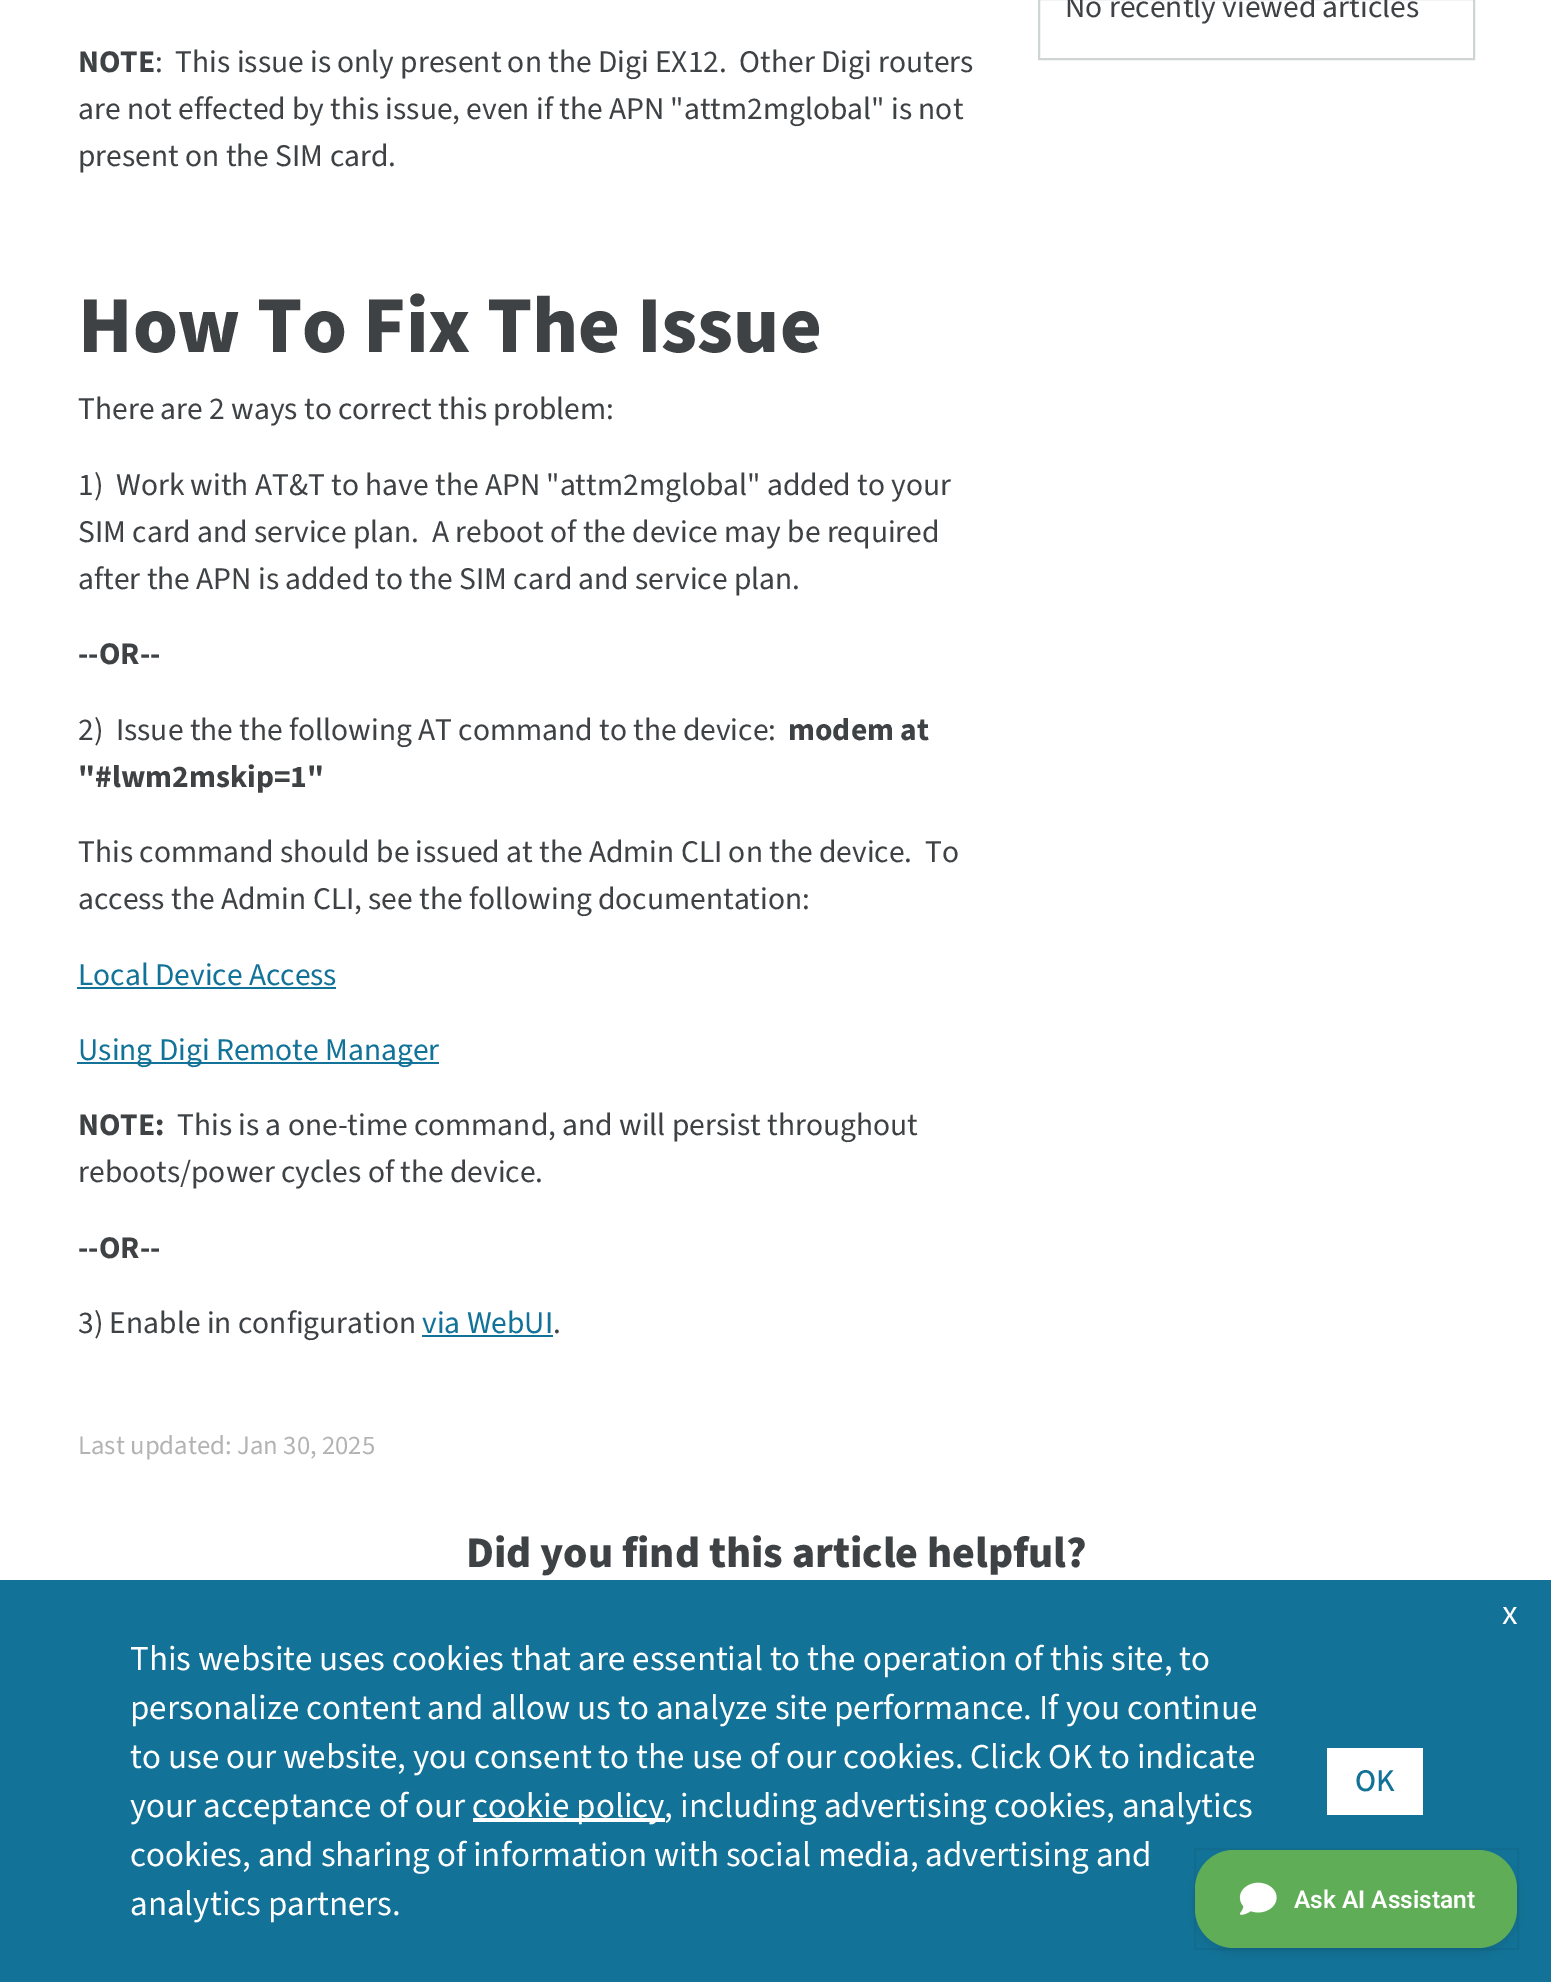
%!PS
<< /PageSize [1551 1982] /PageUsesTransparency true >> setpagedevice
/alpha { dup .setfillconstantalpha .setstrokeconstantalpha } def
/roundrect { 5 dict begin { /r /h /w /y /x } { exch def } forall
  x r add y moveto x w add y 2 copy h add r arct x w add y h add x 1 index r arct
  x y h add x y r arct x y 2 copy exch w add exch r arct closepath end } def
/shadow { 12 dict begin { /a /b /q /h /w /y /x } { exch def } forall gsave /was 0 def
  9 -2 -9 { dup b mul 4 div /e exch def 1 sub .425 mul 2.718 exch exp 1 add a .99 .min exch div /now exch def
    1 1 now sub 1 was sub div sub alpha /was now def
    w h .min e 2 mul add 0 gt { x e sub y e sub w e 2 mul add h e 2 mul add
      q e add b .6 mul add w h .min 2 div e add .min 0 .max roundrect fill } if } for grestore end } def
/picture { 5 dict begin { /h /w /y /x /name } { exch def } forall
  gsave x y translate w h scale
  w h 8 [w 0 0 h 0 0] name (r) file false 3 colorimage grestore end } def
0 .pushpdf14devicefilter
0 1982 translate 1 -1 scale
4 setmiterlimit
1 setgray
0 0 1551 1982 rectfill
0.812 0.835 0.827 setrgbcolor
2 setlinewidth
1039 -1 435 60 rectstroke
/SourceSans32-ExtraLight [31.5 0 0 -31.5 0 0] selectfont
0.247 0.259 0.271 setrgbcolor
1065 17 moveto (No recently viewed articles) show
/SourceSans3-ExtraLight [31.5 0 0 -31.5 0 0] selectfont
78 72 moveto (NOTE) show
/SourceSans32-ExtraLight [31.5 0 0 -31.5 0 0] selectfont
155 72 moveto (:  This issue is only present on the Digi EX12.  Other Digi routers) show
78 119 moveto (are not effected by this issue, even if the APN "attm2mglobal" is not) show
78 166 moveto (present on the SIM card.) show
/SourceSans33-ExtraLight [80.5 0 0 -80.5 0 0] selectfont
78 352 moveto (How To Fix The Issue) show
/SourceSans32-ExtraLight [31.5 0 0 -31.5 0 0] selectfont
78 419 moveto (There are 2 ways to correct this problem:) show
78 495 moveto (1\)  Work with AT&T to have the APN "attm2mglobal" added to your) show
78 542 moveto (SIM card and service plan.  A reboot of the device may be required) show
78 589 moveto (after the APN is added to the SIM card and service plan.) show
/SourceSans3-ExtraLight [31.5 0 0 -31.5 0 0] selectfont
78 664 moveto (--OR--) show
/SourceSans32-ExtraLight [31.5 0 0 -31.5 0 0] selectfont
78 740 moveto (2\)  Issue the the following AT command to the device:) show
/SourceSans3-ExtraLight [31.5 0 0 -31.5 0 0] selectfont
788 740 moveto (modem at) show
78 787 moveto ("#lwm2mskip=1") show
/SourceSans32-ExtraLight [31.5 0 0 -31.5 0 0] selectfont
78 862 moveto (This command should be issued at the Admin CLI on the device.  To) show
78 909 moveto (access the Admin CLI, see the following documentation:) show
0.071 0.447 0.596 setrgbcolor
78 985 moveto (Local Device Access) show
77 987 259 2 rectfill
77 1062 362 2 rectfill
78 1060 moveto (Using Digi Remote Manager) show
/SourceSans3-ExtraLight [31.5 0 0 -31.5 0 0] selectfont
0.247 0.259 0.271 setrgbcolor
78 1135 moveto (NOTE:) show
/SourceSans32-ExtraLight [31.5 0 0 -31.5 0 0] selectfont
177 1135 moveto (This is a one-time command, and will persist throughout) show
78 1182 moveto (reboots/power cycles of the device.) show
/SourceSans3-ExtraLight [31.5 0 0 -31.5 0 0] selectfont
78 1258 moveto (--OR--) show
/SourceSans32-ExtraLight [31.5 0 0 -31.5 0 0] selectfont
78 1333 moveto (3\) Enable in configuration) show
0.071 0.447 0.596 setrgbcolor
422 1333 moveto (via WebUI) show
422 1335 131 2 rectfill
0.247 0.259 0.271 setrgbcolor
553 1333 moveto (.) show
/SourceSans32-ExtraLight [26.75 0 0 -26.75 0 0] selectfont
0.702 setgray
78 1454 moveto (Last updated: Jan 30, 2025) show
/SourceSans33-ExtraLight [43.75 0 0 -43.75 0 0] selectfont
0.247 0.259 0.271 setrgbcolor
466 1567 moveto (Did you find this article helpful?) show
0.071 0.447 0.596 setrgbcolor
0 1580 1551 402 rectfill
/SourceSans32-ExtraLight [35 0 0 -35 0 0] selectfont
1 setgray
1502 1624 moveto (x) show
130 1670 moveto (This website uses cookies that are essential to the operation of this site, to) show
130 1719 moveto (personalize content and allow us to analyze site performance. If you continue) show
130 1768 moveto (to use our website, you consent to the use of our cookies. Click OK to indicate) show
130 1817 moveto (your acceptance of our) show
473 1818 192 4 rectfill
472 1817 moveto (cookie policy, including advertising cookies, analytics) show
130 1866 moveto (cookies, and sharing of information with social media, advertising and) show
130 1915 moveto (analytics partners.) show
1327 1748 96 67 rectfill
/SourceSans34-ExtraLight [31.5 0 0 -31.5 0 0] selectfont
0.071 0.447 0.596 setrgbcolor
1355 1791 moveto (OK) show
0 setgray
1195 1855 322 98 39 4.5 0.1 shadow
0.05 alpha
1195 1849 323 100 rectstroke
1 alpha
0.373 0.678 0.337 setrgbcolor
1195 1850 322 98 39 roundrect fill
(img1.rgb) 1239 1882 38 33 picture
/Roboto-SemiBold [24.5 0 0 -24.5 0 0] selectfont
1 setgray
1294 1908 moveto (Ask AI Assistant) show
.poppdf14devicefilter showpage
